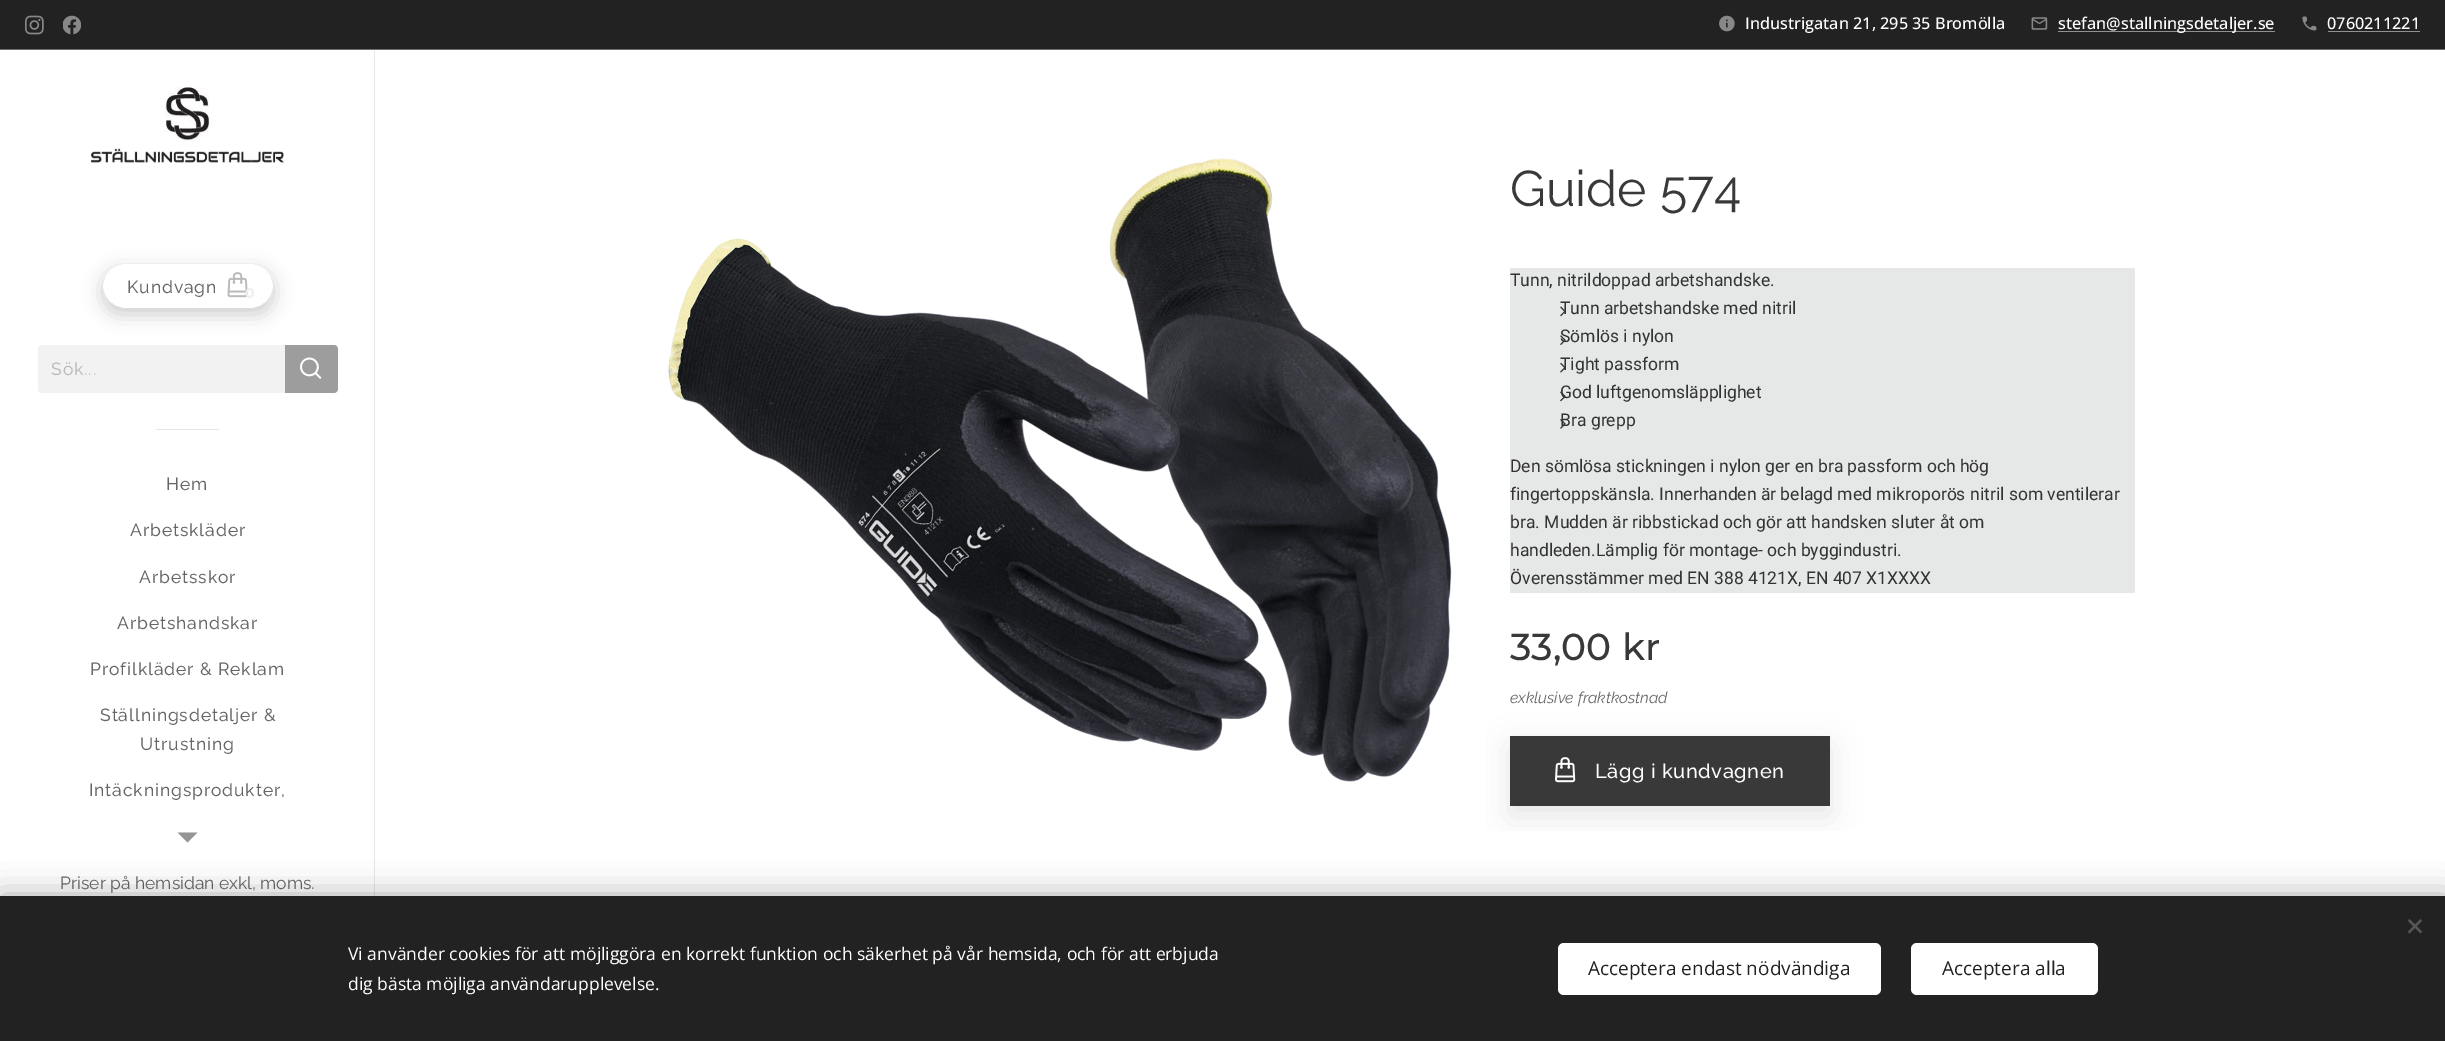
%!PS
<< /PageSize [2445 1041] /PageUsesTransparency true >> setpagedevice
/alpha { dup .setfillconstantalpha .setstrokeconstantalpha } def
/roundrect { 5 dict begin { /r /h /w /y /x } { exch def } forall
  x r add y moveto x w add y 2 copy h add r arct x w add y h add x 1 index r arct
  x y h add x y r arct x y 2 copy exch w add exch r arct closepath end } def
/shadow { 12 dict begin { /a /b /q /h /w /y /x } { exch def } forall gsave /was 0 def
  9 -2 -9 { dup b mul 4 div /e exch def 1 sub .425 mul 2.718 exch exp 1 add a .99 .min exch div /now exch def
    1 1 now sub 1 was sub div sub alpha /was now def
    w h .min e 2 mul add 0 gt { x e sub y e sub w e 2 mul add h e 2 mul add
      q e add b .6 mul add w h .min 2 div e add .min 0 .max roundrect fill } if } for grestore end } def
/picture { 5 dict begin { /h /w /y /x /name } { exch def } forall
  gsave x y translate w h scale
  w h 8 [w 0 0 h 0 0] name (r) file false 3 colorimage grestore end } def
0 .pushpdf14devicefilter
0 1041 translate 1 -1 scale
4 setmiterlimit
1 setgray
0 0 2445 1041 rectfill
0.133 setgray
0 0 2445 49 rectfill
(img1.rgb) 25 15 19 20 picture
(img2.rgb) 63 15 18 20 picture
(img3.rgb) 1719 15 16 17 picture
/OpenSans-Medium [16.25 0 0 -16.25 0 0] selectfont
1 setgray
1745 29 moveto (Industrigatan 21, 295 35 Bromölla) show
(img4.rgb) 2031 17 17 13 picture
0.569 setgray
2058 31 217 1 rectfill
1 setgray
2058 29 moveto (stefan@stallningsdetaljer.se) show
(img5.rgb) 2302 16 15 15 picture
2327 29 moveto (0760211221) show
0.569 setgray
2328 31 92 1 rectfill
0.431 setgray
0 49 2445 1 rectfill
(img6.rgb) 91 87 193 76 picture
gsave
newpath 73 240 moveto 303 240 lineto 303 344 lineto 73 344 lineto closepath 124 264 moveto 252 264 lineto 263.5 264 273 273.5 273 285 curveto 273 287 lineto 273 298.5 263.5 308 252 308 curveto 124 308 lineto 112.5 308 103 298.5 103 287 curveto 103 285 lineto 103 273.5 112.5 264 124 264 curveto closepath eoclip newpath
0 setgray
103 270 170 44 21 9.5 0.2 shadow
grestore
0.2 alpha
1 setgray
103 264 170 44 21 roundrect fill
/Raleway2-Regular [17.5 0 0 -17.5 0 0] selectfont
1 alpha
0.4 setgray
127 293 moveto 0.9 0 (Kundvagn) ashow
(img7.rgb) 227 272 21 26 picture
/Montserrat-Bold [14 0 0 -14 0 0] selectfont
0.933 setgray
245 298 moveto (0) show
0.949 setgray
newpath 42 345 moveto 285 345 lineto 285 393 lineto 42 393 lineto 40 393 38 391 38 389 curveto 38 349 lineto 38 347 40 345 42 345 curveto closepath fill
/Raleway2-Regular [17.5 0 0 -17.5 0 0] selectfont
0.729 setgray
51 375 moveto 0.9 0 (Sök...) ashow
0.616 setgray
newpath 285 345 moveto 334 345 lineto 336 345 338 347 338 349 curveto 338 389 lineto 338 391 336 393 334 393 curveto 285 393 lineto closepath fill
(img8.rgb) 300 357 22 22 picture
0.902 setgray
156 429 63 1 rectfill
0.4 setgray
166 490 moveto 0.9 0 (Hem) ashow
130 536 moveto 0.9 0 (Arbetskläder) ashow
139 583 moveto 0.9 0 (Arbetsskor) ashow
117 629 moveto 0.9 0 (Arbetshandskar) ashow
90 675 moveto 0.9 0 (Profilkläder & Reklam) ashow
100 721 moveto 0.9 0 (Ställningsdetaljer &) ashow
140 750 moveto 0.9 0 (Utrustning) ashow
89 796 moveto 0.9 0 (Intäckningsprodukter,) ashow
0.58 setgray
newpath 177.5 832.5 moveto 197.5 832.5 lineto 187.5 842.5 lineto closepath fill
0.91 setgray
374 50 1 846 rectfill
(img9.rgb) 668 158 784 624 picture
/Raleway-Regular [50 0 0 -50 0 0] selectfont
0.224 setgray
1510 206 moveto (Guide 574) show
0.902 0.906 0.906 setrgbcolor
1510 268 625 325 rectfill
/Heebo-Regular [17.5 0 0 -17.5 0 0] selectfont
0.2 setgray
1510 286 moveto (Tunn, nitrildoppad arbetshandske.) show
1560 314 moveto (Tunn arbetshandske med nitril) show
(img10.rgb) 1560 306 5 11 picture
1560 342 moveto (Sömlös i nylon) show
(img11.rgb) 1560 335 6 10 picture
1560 370 moveto (Tight passform) show
(img12.rgb) 1560 362 5 11 picture
1560 398 moveto (God luftgenomsläpplighet) show
(img13.rgb) 1560 391 6 11 picture
1560 426 moveto (Bra grepp) show
(img14.rgb) 1560 419 6 10 picture
1510 472 moveto (Den sömlösa stickningen i nylon ger en bra passform och hög) show
1510 500 moveto (fingertoppskänsla. Innerhanden är belagd med mikroporös nitril som ventilerar) show
1510 528 moveto (bra. Mudden är ribbstickad och gör att handsken sluter åt om) show
1510 556 moveto (handleden.Lämplig för montage- och byggindustri.) show
1510 584 moveto (Överensstämmer med EN 388 4121X, EN 407 X1XXXX) show
/Montserrat-Medium [37.5 0 0 -37.5 0 0] selectfont
0.224 setgray
1510 660 moveto (33,00 kr) show
/Raleway-Italic [15.6 0 0 -15.6 0 0] selectfont
0.4 setgray
1510 703 moveto (exklusive fraktkostnad) show
gsave
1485 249 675 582 rectclip
0 setgray
1510 746 320 70 0 15.5 0.1 shadow
grestore
0.224 setgray
1510 736 320 70 rectfill
(img15.rgb) 1555 757 21 26 picture
/Raleway-Medium [20 0 0 -20 0 0] selectfont
1 setgray
1595 778 moveto 0.6 0 (Lägg i kundvagnen) ashow
/Raleway-Regular [17.5 0 0 -17.5 0 0] selectfont
0.4 setgray
60 889 moveto (Priser på hemsidan exkl, moms.) show
0 setgray
0 896 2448 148 0 15.5 0.33 shadow
0.133 setgray
0 896 2445 145 rectfill
0.333 setgray
newpath 2408 931.5 moveto 2420.5 919 lineto 2422 921 lineto 2409.5 933.5 lineto closepath fill
newpath 2409.5 919 moveto 2422 931.5 lineto 2420.5 933.5 lineto 2408 921 lineto closepath fill
/OpenSans-Regular [17.5 0 0 -17.5 0 0] selectfont
1 setgray
348 960 moveto (Vi använder cookies för att möjliggöra en korrekt funktion och säkerhet på vår hemsida, och för att erbjuda) show
348 990 moveto (dig bästa möjliga användarupplevelse.) show
1558 943 323 52 6 roundrect fill
/OpenSans-Regular [19 0 0 -19 0 0] selectfont
0.133 setgray
1588 975 moveto (Acceptera endast nödvändiga) show
1 setgray
1911 943 187 52 6 roundrect fill
0.133 setgray
1942 975 moveto (Acceptera alla) show
.poppdf14devicefilter showpage
